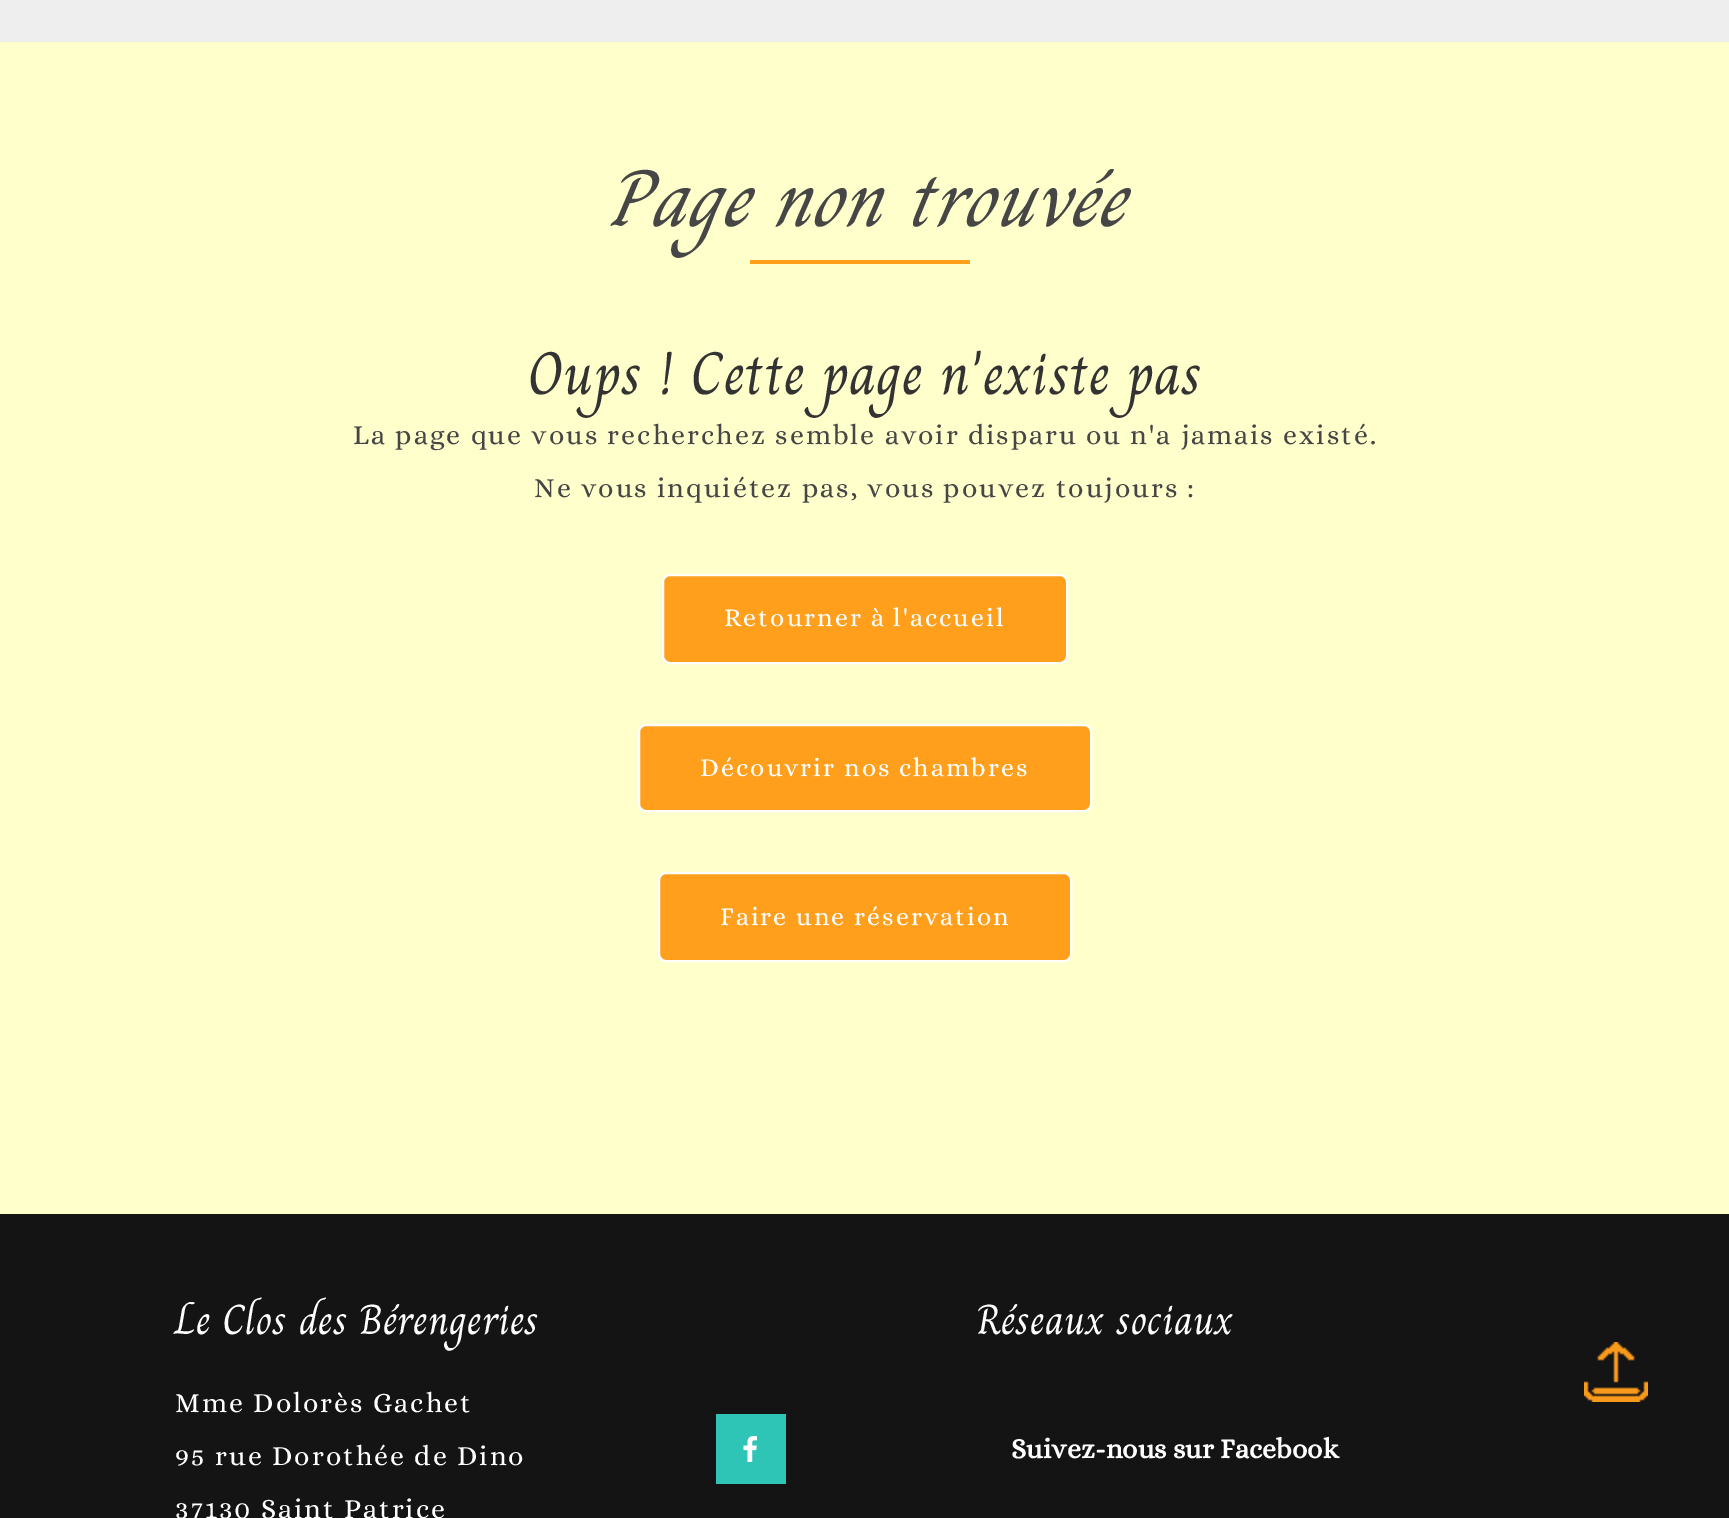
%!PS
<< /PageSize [1729 1518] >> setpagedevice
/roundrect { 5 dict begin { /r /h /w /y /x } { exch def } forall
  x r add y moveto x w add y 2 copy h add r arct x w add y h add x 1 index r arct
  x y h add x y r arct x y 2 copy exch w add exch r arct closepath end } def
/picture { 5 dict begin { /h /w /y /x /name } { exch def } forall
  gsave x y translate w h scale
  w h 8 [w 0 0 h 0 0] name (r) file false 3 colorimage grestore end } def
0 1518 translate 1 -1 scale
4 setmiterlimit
1 1 0.8 setrgbcolor
0 0 1729 1518 rectfill
0.933 setgray
0 0 1729 42 rectfill
/Charm-Italic [80 0 0 -80 0 0] selectfont
0.275 setgray
606 226 moveto (Page non trouvée) show
1 0.624 0.11 setrgbcolor
750 260 220 4 rectfill
/Charm-Regular [60 0 0 -60 0 0] selectfont
0.2 setgray
527 394 moveto (Oups ! Cette page n'existe pas) show
/Alice-Regular [28 0 0 -28 0 0] selectfont
0.275 setgray
353 444 moveto 2 0 (La page que vous recherchez semble avoir disparu ou n'a jamais existé.) ashow
534 497 moveto 2 0 (Ne vous inquiétez pas, vous pouvez toujours :) ashow
1 0.624 0.11 setrgbcolor
663 575 404 88 7 roundrect gsave fill grestore
1 setgray
2 setlinewidth
stroke
/Alice-Regular [26 0 0 -26 0 0] selectfont
724 626 moveto 2 0 (Retourner à l'accueil) ashow
1 0.624 0.11 setrgbcolor
639 725 452 86 7 roundrect gsave fill grestore
1 setgray
stroke
700 776 moveto 2 0 (Découvrir nos chambres) ashow
1 0.624 0.11 setrgbcolor
659 873 412 88 7 roundrect gsave fill grestore
1 setgray
stroke
720 925 moveto 2 0 (Faire une réservation) ashow
0.082 0.078 0.078 setrgbcolor
0 1214 1729 304 rectfill
/Charm-Regular [42 0 0 -42 0 0] selectfont
1 setgray
175 1334 moveto (Le Clos des Bérengeries) show
/Alice-Regular [28 0 0 -28 0 0] selectfont
175 1412 moveto 2 0 (Mme Dolorès Gachet) ashow
175 1465 moveto 2 0 (95 rue Dorothée de Dino) ashow
175 1518 moveto 2 0 (37130 Saint Patrice) ashow
/Charm-Regular [42 0 0 -42 0 0] selectfont
976 1334 moveto (Réseaux sociaux) show
0.18 0.769 0.714 setrgbcolor
716 1414 70 70 rectfill
(img1.rgb) 743 1436 14 26 picture
/Alice-Bold [28 0 0 -28 0 0] selectfont
1 setgray
1011 1458 moveto (Suivez-nous sur Facebook) show
(img2.rgb) 1584 1342 64 60 picture
showpage
